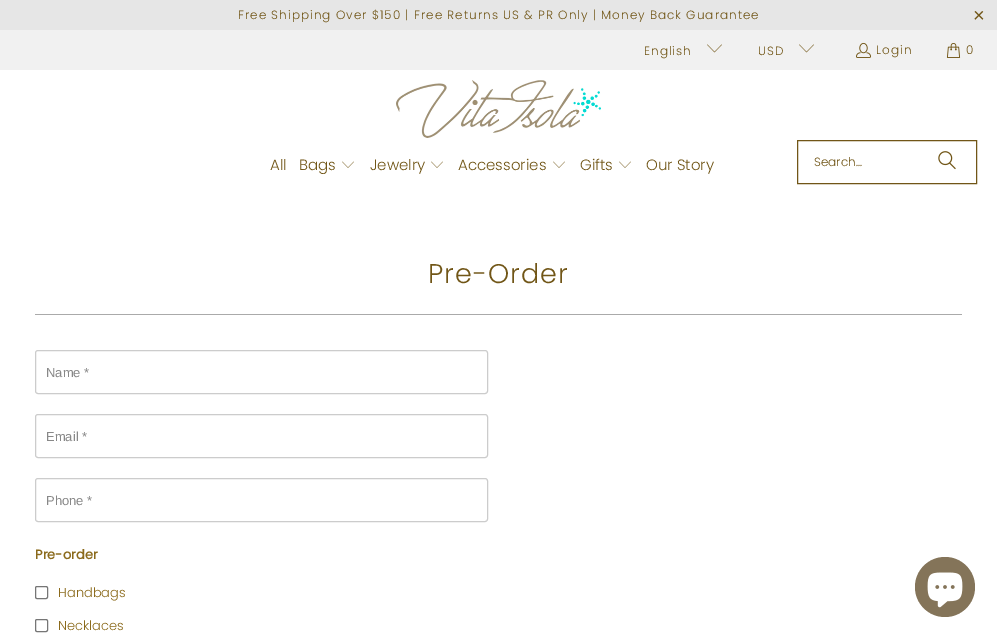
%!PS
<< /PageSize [997 638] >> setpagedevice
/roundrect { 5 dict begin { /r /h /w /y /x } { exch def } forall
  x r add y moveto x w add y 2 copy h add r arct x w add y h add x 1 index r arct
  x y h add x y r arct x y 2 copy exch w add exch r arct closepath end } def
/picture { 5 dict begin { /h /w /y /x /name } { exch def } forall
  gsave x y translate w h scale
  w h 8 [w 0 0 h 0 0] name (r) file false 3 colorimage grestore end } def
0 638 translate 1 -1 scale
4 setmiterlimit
1 setgray
0 0 997 638 rectfill
0.902 setgray
0 0 997 30 rectfill
/Poppins-Light [12 0 0 -12 0 0] selectfont
0.443 0.337 0.09 setrgbcolor
238 19 moveto 1 0 (Free Shipping Over $150 | Free Returns US & PR Only | Money Back Guarantee) ashow
/LiberationSans-Regular [20 0 0 -20 0 0] selectfont
973 22 moveto 1 0 (×) ashow
0.945 setgray
0 30 997 40 rectfill
/Poppins-Light [12 0 0 -12 0 0] selectfont
0.443 0.337 0.09 setrgbcolor
644 55 moveto 1 0 (English) ashow
(img1.rgb) 707 44 15 9 picture
758 55 moveto 1 0 (USD) ashow
(img1.rgb) 799 44 15 9 picture
(img2.rgb) 856 42 15 16 picture
876 54 moveto 1 0 (Login) ashow
(img3.rgb) 946 43 15 15 picture
966 54 moveto 1 0 (0) ashow
(img4.rgb) 396 80 205 58 picture
/Poppins-Light [15 0 0 -15 0 0] selectfont
270 170 moveto (All) show
299 170 moveto (Bags) show
(img5.rgb) 342 161 12 7 picture
370 170 moveto (Jewelry) show
(img5.rgb) 431 161 12 7 picture
458 170 moveto (Accessories) show
(img5.rgb) 553 161 12 7 picture
580 170 moveto (Gifts) show
(img5.rgb) 619 161 12 7 picture
646 170 moveto (Our Story) show
797.5 140.5 179 43 rectstroke
/Poppins-Light [12 0 0 -12 0 0] selectfont
814 166 moveto (Search...) show
(img6.rgb) 938 151 18 19 picture
/Poppins-Light [27 0 0 -27 0 0] selectfont
428 283 moveto 1 0 (Pre-Order) ashow
0.667 setgray
35 314 927 1 rectfill
0.8 setgray
35.5 350.5 452 43 2.5 roundrect stroke
/LiberationSans-Regular [13 0 0 -13 0 0] selectfont
0.533 setgray
46 377 moveto (Name *) show
0.8 setgray
35.5 414.5 452 43 2.5 roundrect stroke
0.533 setgray
46 441 moveto (Email *) show
0.8 setgray
35.5 478.5 452 43 2.5 roundrect stroke
0.533 setgray
46 505 moveto (Phone *) show
/Poppins-Bold [13 0 0 -13 0 0] selectfont
0.545 0.416 0.106 setrgbcolor
35 559 moveto (Pre-order) show
0.463 setgray
35.5 586.5 12 12 1.5 roundrect stroke
/Poppins-Light [13 0 0 -13 0 0] selectfont
0.545 0.416 0.106 setrgbcolor
58 597 moveto (Handbags) show
0.463 setgray
35.5 619.5 12 12 1.5 roundrect stroke
0.545 0.416 0.106 setrgbcolor
58 630 moveto (Necklaces) show
0.518 0.455 0.349 setrgbcolor
newpath 945 587 30 0 360 arc closepath fill
(img7.rgb) 927 572 36 36 picture
showpage
